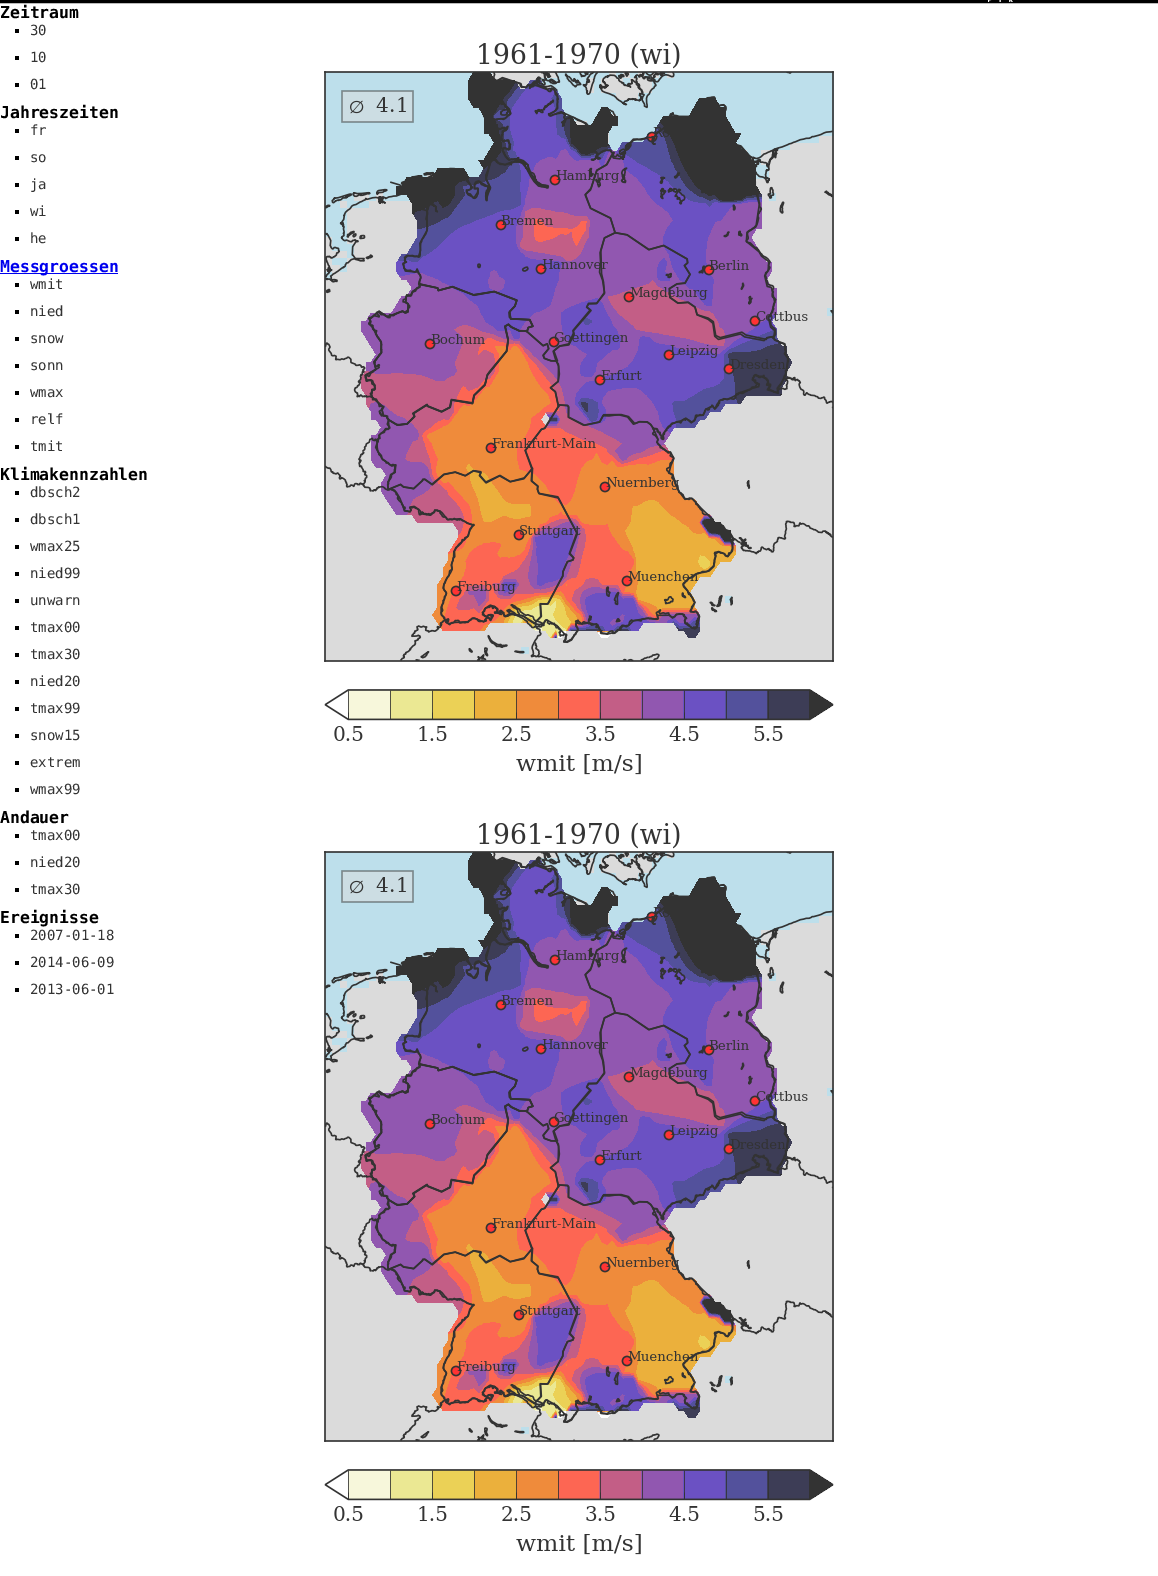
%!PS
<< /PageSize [1158 1576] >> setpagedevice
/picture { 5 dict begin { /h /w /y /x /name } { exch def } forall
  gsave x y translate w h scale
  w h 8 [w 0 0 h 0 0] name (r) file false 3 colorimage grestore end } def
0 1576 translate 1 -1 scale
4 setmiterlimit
1 setgray
0 0 1158 1576 rectfill
0 setgray
3 setlinewidth
1.5 -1.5 1155 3 rectstroke
(img1.rgb) 988 0 25 2 picture
/DejaVuSansMono-Bold [16.4 0 0 -16.4 0 0] selectfont
0 18 moveto (Zeitraum) show
15 29 4 4 rectfill
/DejaVuSansMono-Regular [14 0 0 -14 0 0] selectfont
0.2 setgray
30 35 moveto (30) show
0 setgray
15 56 4 4 rectfill
0.2 setgray
30 62 moveto (10) show
0 setgray
15 83 4 4 rectfill
0.2 setgray
30 89 moveto (01) show
/DejaVuSansMono-Bold [16.4 0 0 -16.4 0 0] selectfont
0 setgray
0 118 moveto (Jahreszeiten) show
15 129 4 4 rectfill
/DejaVuSansMono-Regular [14 0 0 -14 0 0] selectfont
0.2 setgray
30 135 moveto (fr) show
0 setgray
15 156 4 4 rectfill
0.2 setgray
30 162 moveto (so) show
0 setgray
15 183 4 4 rectfill
0.2 setgray
30 189 moveto (ja) show
0 setgray
15 210 4 4 rectfill
0.2 setgray
30 216 moveto (wi) show
0 setgray
15 237 4 4 rectfill
0.2 setgray
30 243 moveto (he) show
0 0 0.933 setrgbcolor
0 273 118 1 rectfill
/DejaVuSansMono-Bold [16.4 0 0 -16.4 0 0] selectfont
0 272 moveto (Messgroessen) show
0 setgray
15 283 4 4 rectfill
/DejaVuSansMono-Regular [14 0 0 -14 0 0] selectfont
0.2 setgray
30 289 moveto (wmit) show
0 setgray
15 310 4 4 rectfill
0.2 setgray
30 316 moveto (nied) show
0 setgray
15 337 4 4 rectfill
0.2 setgray
30 343 moveto (snow) show
0 setgray
15 364 4 4 rectfill
0.2 setgray
30 370 moveto (sonn) show
0 setgray
15 391 4 4 rectfill
0.2 setgray
30 397 moveto (wmax) show
0 setgray
15 418 4 4 rectfill
0.2 setgray
30 424 moveto (relf) show
0 setgray
15 445 4 4 rectfill
0.2 setgray
30 451 moveto (tmit) show
/DejaVuSansMono-Bold [16.4 0 0 -16.4 0 0] selectfont
0 setgray
0 480 moveto (Klimakennzahlen) show
15 491 4 4 rectfill
/DejaVuSansMono-Regular [14 0 0 -14 0 0] selectfont
0.2 setgray
30 497 moveto (dbsch2) show
0 setgray
15 518 4 4 rectfill
0.2 setgray
30 524 moveto (dbsch1) show
0 setgray
15 545 4 4 rectfill
0.2 setgray
30 551 moveto (wmax25) show
0 setgray
15 572 4 4 rectfill
0.2 setgray
30 578 moveto (nied99) show
0 setgray
15 599 4 4 rectfill
0.2 setgray
30 605 moveto (unwarn) show
0 setgray
15 626 4 4 rectfill
0.2 setgray
30 632 moveto (tmax00) show
0 setgray
15 653 4 4 rectfill
0.2 setgray
30 659 moveto (tmax30) show
0 setgray
15 680 4 4 rectfill
0.2 setgray
30 686 moveto (nied20) show
0 setgray
15 707 4 4 rectfill
0.2 setgray
30 713 moveto (tmax99) show
0 setgray
15 734 4 4 rectfill
0.2 setgray
30 740 moveto (snow15) show
0 setgray
15 761 4 4 rectfill
0.2 setgray
30 767 moveto (extrem) show
0 setgray
15 788 4 4 rectfill
0.2 setgray
30 794 moveto (wmax99) show
/DejaVuSansMono-Bold [16.4 0 0 -16.4 0 0] selectfont
0 setgray
0 823 moveto (Andauer) show
15 834 4 4 rectfill
/DejaVuSansMono-Regular [14 0 0 -14 0 0] selectfont
0.2 setgray
30 840 moveto (tmax00) show
0 setgray
15 861 4 4 rectfill
0.2 setgray
30 867 moveto (nied20) show
0 setgray
15 888 4 4 rectfill
0.2 setgray
30 894 moveto (tmax30) show
/DejaVuSansMono-Bold [16.4 0 0 -16.4 0 0] selectfont
0 setgray
0 923 moveto (Ereignisse) show
15 934 4 4 rectfill
/DejaVuSansMono-Regular [14 0 0 -14 0 0] selectfont
0.2 setgray
30 940 moveto (2007-01-18) show
0 setgray
15 961 4 4 rectfill
0.2 setgray
30 967 moveto (2014-06-09) show
0 setgray
15 988 4 4 rectfill
0.2 setgray
30 994 moveto (2013-06-01) show
(img2.rgb) 324 42 510 733 picture
(img2.rgb) 324 822 510 733 picture
showpage
